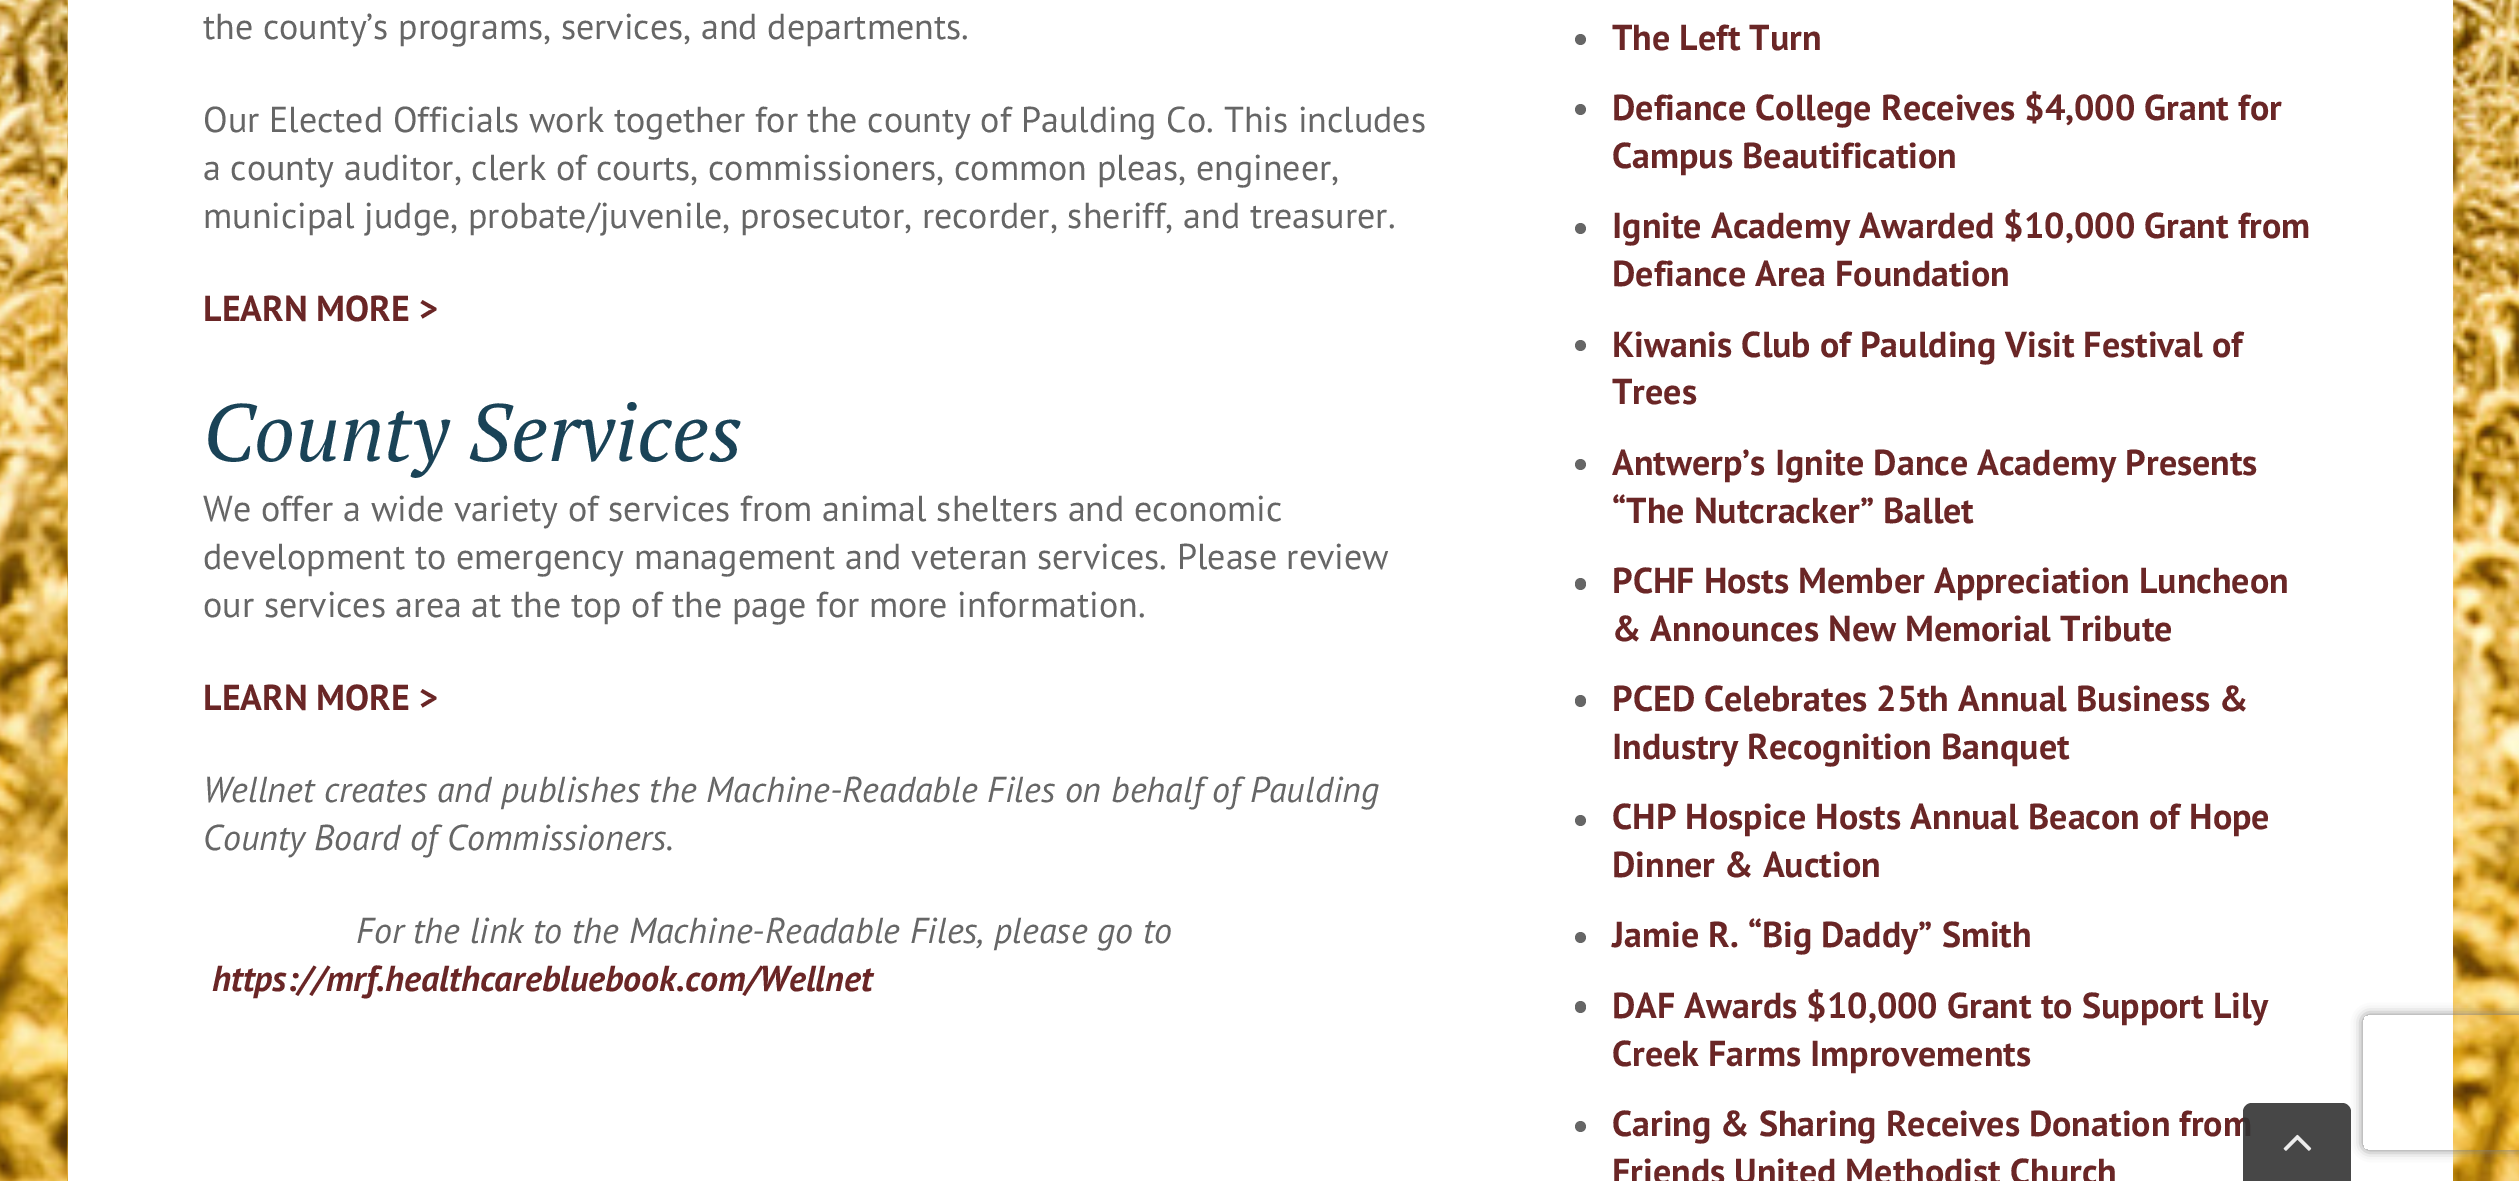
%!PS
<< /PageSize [2519 1181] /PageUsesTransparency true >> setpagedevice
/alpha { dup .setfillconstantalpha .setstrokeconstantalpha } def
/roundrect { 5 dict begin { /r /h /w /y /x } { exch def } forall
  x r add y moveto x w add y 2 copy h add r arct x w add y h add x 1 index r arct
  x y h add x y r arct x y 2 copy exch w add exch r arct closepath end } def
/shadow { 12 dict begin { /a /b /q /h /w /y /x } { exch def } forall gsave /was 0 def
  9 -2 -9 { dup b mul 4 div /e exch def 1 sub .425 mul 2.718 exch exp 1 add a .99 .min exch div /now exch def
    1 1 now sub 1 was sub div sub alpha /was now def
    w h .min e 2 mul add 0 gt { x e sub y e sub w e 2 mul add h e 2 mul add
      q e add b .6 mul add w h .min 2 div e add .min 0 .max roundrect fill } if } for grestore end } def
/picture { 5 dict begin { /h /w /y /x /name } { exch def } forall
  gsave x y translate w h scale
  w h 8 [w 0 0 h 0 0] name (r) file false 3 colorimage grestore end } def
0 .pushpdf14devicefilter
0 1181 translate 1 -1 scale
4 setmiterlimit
1 setgray
0 0 2519 1181 rectfill
(img1.rgb) 0 0 2519 1181 picture
(img2.rgb) 67 0 1 1181 picture
68 0 2385 1181 rectfill
/PTSans-Regular [36 0 0 -36 0 0] selectfont
0.4 setgray
203 39 moveto (the county’s programs, services, and departments.) show
203 132 moveto (Our Elected Officials work together for the county of Paulding Co. This includes) show
203 180 moveto (a county auditor, clerk of courts, commissioners, common pleas, engineer,) show
203 228 moveto (municipal judge, probate/juvenile, prosecutor, recorder, sheriff, and treasurer.) show
/PTSans-Bold [36 0 0 -36 0 0] selectfont
0.416 0.149 0.149 setrgbcolor
203 321 moveto (LEARN MORE >) show
/PTSerif-Italic [81 0 0 -81 0 0] selectfont
0.102 0.263 0.341 setrgbcolor
203 461 moveto (County Services) show
/PTSans-Regular [36 0 0 -36 0 0] selectfont
0.4 setgray
203 521 moveto (We offer a wide variety of services from animal shelters and economic) show
203 569 moveto (development to emergency management and veteran services. Please review) show
203 617 moveto (our services area at the top of the page for more information.) show
/PTSans-Bold [36 0 0 -36 0 0] selectfont
0.416 0.149 0.149 setrgbcolor
203 710 moveto (LEARN MORE >) show
/PTSans-Italic [36 0 0 -36 0 0] selectfont
0.4 setgray
203 802 moveto (Wellnet creates and publishes the Machine-Readable Files on behalf of Paulding) show
203 850 moveto (County Board of Commissioners.) show
356 943 moveto (For the link to the Machine-Readable Files, please go to) show
/PTSans-BoldItalic [36 0 0 -36 0 0] selectfont
0.416 0.149 0.149 setrgbcolor
212 991 moveto (https://mrf.healthcarebluebook.com/Wellnet) show
0.4 setgray
newpath 1580.5 39.5 5.5 0 360 arc closepath fill
/PTSans-Bold [36 0 0 -36 0 0] selectfont
0.416 0.149 0.149 setrgbcolor
1612 50 moveto (The Left Turn) show
0.4 setgray
newpath 1580.5 109.5 5.5 0 360 arc closepath fill
0.416 0.149 0.149 setrgbcolor
1612 120 moveto (Defiance College Receives $4,000 Grant for) show
1612 168 moveto (Campus Beautification) show
0.4 setgray
newpath 1580.5 228.5 5.5 0 360 arc closepath fill
0.416 0.149 0.149 setrgbcolor
1612 238 moveto (Ignite Academy Awarded $10,000 Grant from) show
1612 286 moveto (Defiance Area Foundation) show
0.4 setgray
newpath 1580.5 345.5 5.5 0 360 arc closepath fill
0.416 0.149 0.149 setrgbcolor
1612 357 moveto (Kiwanis Club of Paulding Visit Festival of) show
1612 404 moveto (Trees) show
0.4 setgray
newpath 1580.5 464.5 5.5 0 360 arc closepath fill
0.416 0.149 0.149 setrgbcolor
1612 475 moveto (Antwerp’s Ignite Dance Academy Presents) show
1612 523 moveto (“The Nutcracker” Ballet) show
0.4 setgray
1575 578 11 12 5.5 roundrect fill
0.416 0.149 0.149 setrgbcolor
1612 593 moveto (PCHF Hosts Member Appreciation Luncheon) show
1612 641 moveto (& Announces New Memorial Tribute) show
0.4 setgray
1575 695 11 12 5.5 roundrect fill
0.416 0.149 0.149 setrgbcolor
1612 711 moveto (PCED Celebrates 25th Annual Business &) show
1612 759 moveto (Industry Recognition Banquet) show
0.4 setgray
newpath 1580.5 820.5 5.5 0 360 arc closepath fill
0.416 0.149 0.149 setrgbcolor
1612 829 moveto (CHP Hospice Hosts Annual Beacon of Hope) show
1612 877 moveto (Dinner & Auction) show
0.4 setgray
newpath 1580.5 937.5 5.5 0 360 arc closepath fill
0.416 0.149 0.149 setrgbcolor
1612 947 moveto (Jamie R. “Big Daddy” Smith) show
0.4 setgray
1575 1001 11 12 5.5 roundrect fill
0.416 0.149 0.149 setrgbcolor
1612 1018 moveto (DAF Awards $10,000 Grant to Support Lily) show
1612 1066 moveto (Creek Farms Improvements) show
0.4 setgray
newpath 1580.5 1126.5 5.5 0 360 arc closepath fill
0.416 0.149 0.149 setrgbcolor
1612 1136 moveto (Caring & Sharing Receives Donation from) show
1612 1184 moveto (Friends United Methodist Church) show
gsave
newpath 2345 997 moveto 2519 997 lineto 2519 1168 lineto 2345 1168 lineto closepath 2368 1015 moveto 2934 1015 lineto 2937 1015 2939 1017 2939 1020 curveto 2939 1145 lineto 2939 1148 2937 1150 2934 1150 curveto 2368 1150 lineto 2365 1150 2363 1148 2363 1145 curveto 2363 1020 lineto 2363 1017 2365 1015 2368 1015 curveto closepath eoclip newpath
0.502 setgray
2363 1015 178 135 5 5.5 1 shadow
grestore
0.9 alpha
0.2 setgray
newpath 2252 1103 moveto 2342 1103 lineto 2347 1103 2351 1107 2351 1112 curveto 2351 1181 lineto 2243 1181 lineto 2243 1112 lineto 2243 1107 2247 1103 2252 1103 curveto closepath fill
1 alpha
(img3.rgb) 2283 1134 29 17 picture
.poppdf14devicefilter showpage
